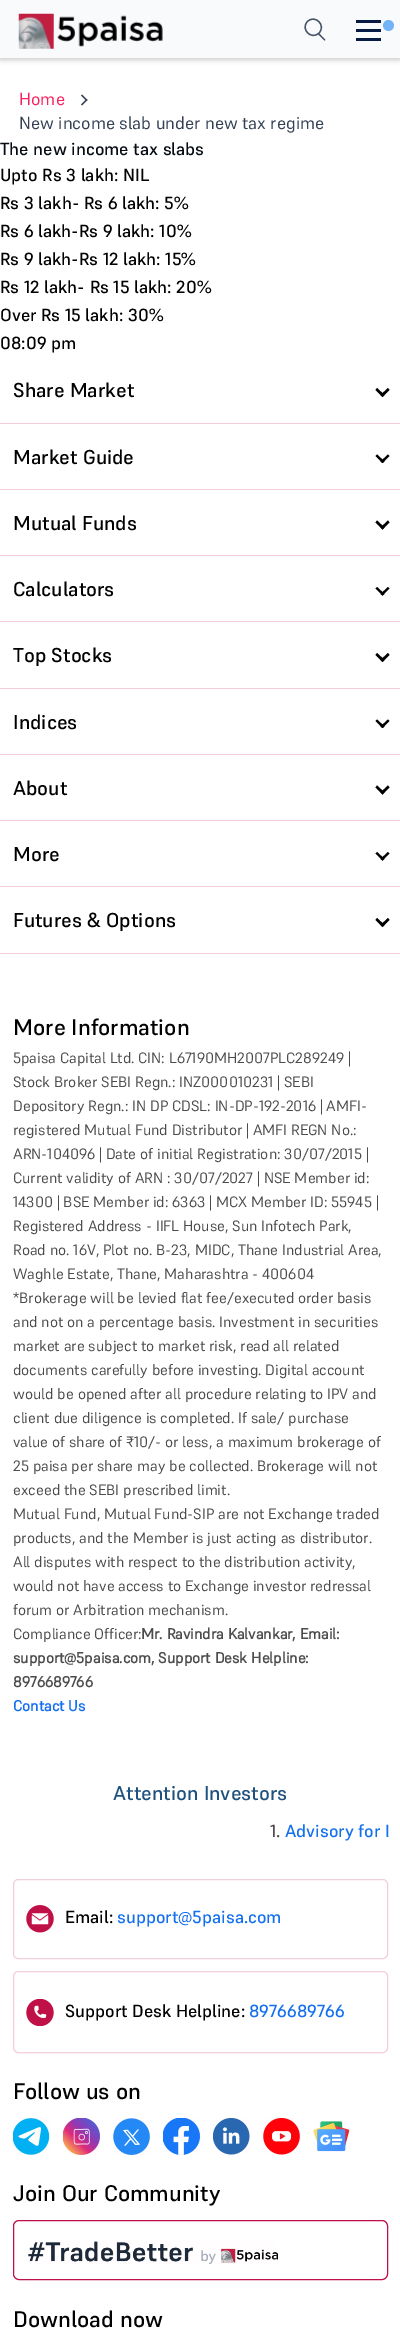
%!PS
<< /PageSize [400 2328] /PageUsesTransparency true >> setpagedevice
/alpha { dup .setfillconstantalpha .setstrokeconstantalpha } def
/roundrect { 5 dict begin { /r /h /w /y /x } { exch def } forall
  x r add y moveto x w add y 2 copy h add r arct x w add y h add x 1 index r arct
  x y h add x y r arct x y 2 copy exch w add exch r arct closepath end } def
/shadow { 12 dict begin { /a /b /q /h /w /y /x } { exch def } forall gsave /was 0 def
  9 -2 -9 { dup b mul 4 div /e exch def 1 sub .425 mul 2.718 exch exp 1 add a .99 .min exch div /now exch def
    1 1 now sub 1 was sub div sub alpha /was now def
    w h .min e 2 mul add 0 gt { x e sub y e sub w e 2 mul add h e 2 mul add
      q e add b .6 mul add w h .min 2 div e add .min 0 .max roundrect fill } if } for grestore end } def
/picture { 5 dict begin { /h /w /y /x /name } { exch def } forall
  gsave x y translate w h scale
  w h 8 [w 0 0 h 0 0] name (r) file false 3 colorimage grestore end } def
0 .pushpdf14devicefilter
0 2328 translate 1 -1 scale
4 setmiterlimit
1 setgray
0 0 400 2328 rectfill
0 setgray
0 3 400 57 0 2.5 0.2 shadow
0.976 0.98 0.984 setrgbcolor
0 0 400 58 rectfill
(img1.rgb) 18 13 145 36 picture
0.278 0.329 0.404 setrgbcolor
newpath 318 33 moveto 319 32.5 321.5 36 322 36.5 curveto 322.5 37 326 39.5 325 40.5 curveto 324.5 41 321.5 37.5 321 37 curveto 320.5 36.5 317 34 318 33 curveto closepath fill
1.3 setlinewidth
newpath 307.5 21.5 moveto 315 14 326.5 25.5 319 33 curveto 311.5 40.5 300 29 307.5 21.5 curveto closepath stroke
0.027 0.102 0.275 setrgbcolor
356 20 25 3 rectfill
0.451 0.702 0.969 setrgbcolor
newpath 388.5 25.5 5.5 0 360 arc closepath fill
0.027 0.102 0.275 setrgbcolor
356 29 25 3 rectfill
356 38 25 3 rectfill
/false-Regular [17.5 0 0 -17.5 0 0] selectfont
0.965 0.129 0.376 setrgbcolor
19 105 moveto (Home) show
0.204 0.251 0.329 setrgbcolor
newpath 86.5 101 moveto 81 95.5 lineto 82 94.5 lineto 87.5 100 lineto closepath fill
newpath 82 105.5 moveto 81 104.5 lineto 86.5 99 lineto 87.5 100 lineto closepath fill
19 129 moveto (New income slab under new tax regime) show
/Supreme-Medium [17.5 0 0 -17.5 0 0] selectfont
0.024 0.043 0.078 setrgbcolor
0 155 moveto (The new income tax slabs) show
0 setgray
0 181 moveto (Upto Rs 3 lakh: NIL) show
0 209 moveto (Rs 3 lakh- Rs 6 lakh: 5%) show
0 237 moveto (Rs 6 lakh-Rs 9 lakh: 10%) show
0 265 moveto (Rs 9 lakh-Rs 12 lakh: 15%) show
0 293 moveto (Rs 12 lakh- Rs 15 lakh: 20%) show
0 321 moveto (Over Rs 15 lakh: 30%) show
0 349 moveto (08:09 pm) show
0.949 0.804 0.851 setrgbcolor
0 423 400 1 rectfill
/Supreme-Medium [20 0 0 -20 0 0] selectfont
0 setgray
13 397 moveto (Share Market) show
newpath 389.5 390 moveto 382.5 397 lineto 380.5 395 lineto 388 388 lineto closepath fill
newpath 384.5 395 moveto 382.5 397 lineto 375.5 390 lineto 377 388 lineto closepath fill
0.949 0.804 0.851 setrgbcolor
0 489 400 1 rectfill
0 setgray
13 464 moveto (Market Guide) show
newpath 389.5 456 moveto 382.5 463 lineto 380.5 461.5 lineto 388 454.5 lineto closepath fill
newpath 384.5 461.5 moveto 382.5 463 lineto 375.5 456 lineto 377 454.5 lineto closepath fill
0.949 0.804 0.851 setrgbcolor
0 555 400 1 rectfill
0 setgray
13 530 moveto (Mutual Funds) show
newpath 389.5 522.5 moveto 382.5 529.5 lineto 380.5 527.5 lineto 388 520.5 lineto closepath fill
newpath 384.5 527.5 moveto 382.5 529.5 lineto 375.5 522.5 lineto 377 520.5 lineto closepath fill
0.949 0.804 0.851 setrgbcolor
0 621 400 1 rectfill
0 setgray
13 596 moveto (Calculators) show
newpath 389.5 588.5 moveto 382.5 595.5 lineto 380.5 594 lineto 388 587 lineto closepath fill
newpath 384.5 594 moveto 382.5 595.5 lineto 375.5 588.5 lineto 377 587 lineto closepath fill
0.949 0.804 0.851 setrgbcolor
0 688 400 1 rectfill
0 setgray
13 662 moveto (Top Stocks) show
newpath 389.5 655 moveto 382.5 662 lineto 380.5 660 lineto 388 653 lineto closepath fill
newpath 384.5 660 moveto 382.5 662 lineto 375.5 655 lineto 377 653 lineto closepath fill
0.949 0.804 0.851 setrgbcolor
0 754 400 1 rectfill
0 setgray
13 729 moveto (Indices) show
newpath 389.5 721 moveto 382.5 728 lineto 380.5 726.5 lineto 388 719.5 lineto closepath fill
newpath 384.5 726.5 moveto 382.5 728 lineto 375.5 721 lineto 377 719.5 lineto closepath fill
0.949 0.804 0.851 setrgbcolor
0 820 400 1 rectfill
0 setgray
13 795 moveto (About) show
newpath 389.5 787.5 moveto 382.5 794.5 lineto 380.5 792.5 lineto 388 785.5 lineto closepath fill
newpath 384.5 792.5 moveto 382.5 794.5 lineto 375.5 787.5 lineto 377 785.5 lineto closepath fill
0.949 0.804 0.851 setrgbcolor
0 886 400 1 rectfill
0 setgray
13 861 moveto (More) show
newpath 389.5 853.5 moveto 382.5 860.5 lineto 380.5 859 lineto 388 852 lineto closepath fill
newpath 384.5 859 moveto 382.5 860.5 lineto 375.5 853.5 lineto 377 852 lineto closepath fill
0.949 0.804 0.851 setrgbcolor
0 953 400 1 rectfill
0 setgray
13 927 moveto (Futures & Options) show
newpath 389.5 920 moveto 382.5 927 lineto 380.5 925 lineto 388 918 lineto closepath fill
newpath 384.5 925 moveto 382.5 927 lineto 375.5 920 lineto 377 918 lineto closepath fill
/Supreme-Medium [22.5 0 0 -22.5 0 0] selectfont
13 1035 moveto (More Information) show
/false-Regular [15 0 0 -15 0 0] selectfont
0.302 0.298 0.298 setrgbcolor
13 1063 moveto (5paisa Capital Ltd. CIN: L67190MH2007PLC289249 |) show
13 1087 moveto (Stock Broker SEBI Regn.: INZ000010231 | SEBI) show
13 1111 moveto (Depository Regn.: IN DP CDSL: IN-DP-192-2016 | AMFI-) show
13 1135 moveto (registered Mutual Fund Distributor | AMFI REGN No.:) show
13 1159 moveto (ARN-104096 | Date of initial Registration: 30/07/2015 |) show
13 1183 moveto (Current validity of ARN : 30/07/2027 | NSE Member id:) show
13 1207 moveto (14300 | BSE Member id: 6363 | MCX Member ID: 55945 |) show
13 1231 moveto (Registered Address - IIFL House, Sun Infotech Park,) show
13 1255 moveto (Road no. 16V, Plot no. B-23, MIDC, Thane Industrial Area,) show
13 1279 moveto (Waghle Estate, Thane, Maharashtra - 400604) show
13 1303 moveto (*Brokerage will be levied flat fee/executed order basis) show
13 1327 moveto (and not on a percentage basis. Investment in securities) show
13 1351 moveto (market are subject to market risk, read all related) show
13 1375 moveto (documents carefully before investing. Digital account) show
13 1399 moveto (would be opened after all procedure relating to IPV and) show
13 1423 moveto (client due diligence is completed. If sale/ purchase) show
13 1447 moveto (value of share of ₹10/- or less, a maximum brokerage of) show
13 1471 moveto (25 paisa per share may be collected. Brokerage will not) show
13 1495 moveto (exceed the SEBI prescribed limit.) show
13 1519 moveto (Mutual Fund, Mutual Fund-SIP are not Exchange traded) show
13 1543 moveto (products, and the Member is just acting as distributor.) show
13 1567 moveto (All disputes with respect to the distribution activity,) show
13 1591 moveto (would not have access to Exchange investor redressal) show
13 1615 moveto (forum or Arbitration mechanism.) show
13 1639 moveto (Compliance Officer:) show
/false-Bold [15 0 0 -15 0 0] selectfont
141 1639 moveto (Mr. Ravindra Kalvankar, Email:) show
13 1663 moveto (support@5paisa.com, Support Desk Helpline:) show
13 1687 moveto (8976689766) show
0.082 0.439 0.937 setrgbcolor
13 1711 moveto (Contact Us) show
/Supreme-Medium [20 0 0 -20 0 0] selectfont
0.122 0.318 0.494 setrgbcolor
113 1800 moveto (Attention Investors) show
/Supreme-Medium [17.5 0 0 -17.5 0 0] selectfont
0.302 0.298 0.298 setrgbcolor
270 1837 moveto (1.) show
0.082 0.439 0.937 setrgbcolor
285 1837 moveto (Advisory for I) show
0.949 0.812 0.855 setrgbcolor
1 setlinewidth
13.5 1879.5 374 79 4.5 roundrect stroke
(img2.rgb) 26 1905 28 28 picture
0 setgray
65 1923 moveto (Email:) show
0.082 0.439 0.937 setrgbcolor
117 1923 moveto (support@5paisa.com) show
0.949 0.812 0.855 setrgbcolor
13.5 1971.5 374 81 4.5 roundrect stroke
(img3.rgb) 26 1999 28 27 picture
0 setgray
65 2017 moveto (Support Desk Helpline:) show
0.082 0.439 0.937 setrgbcolor
249 2017 moveto (8976689766) show
/Supreme-Medium [22.5 0 0 -22.5 0 0] selectfont
0 setgray
13 2099 moveto (Follow us on) show
(img4.rgb) 13 2118 37 37 picture
(img5.rgb) 63 2118 37 37 picture
(img6.rgb) 113 2118 37 37 picture
(img7.rgb) 163 2118 37 37 picture
(img8.rgb) 213 2118 37 37 picture
(img9.rgb) 263 2118 37 37 picture
(img10.rgb) 313 2121 37 31 picture
13 2201 moveto (Join Our Community) show
0.753 0.063 0.282 setrgbcolor
13.5 2220.5 374 59 5.5 roundrect stroke
(img11.rgb) 28 2241 250 23 picture
0 setgray
13 2327 moveto (Download now) show
.poppdf14devicefilter showpage
